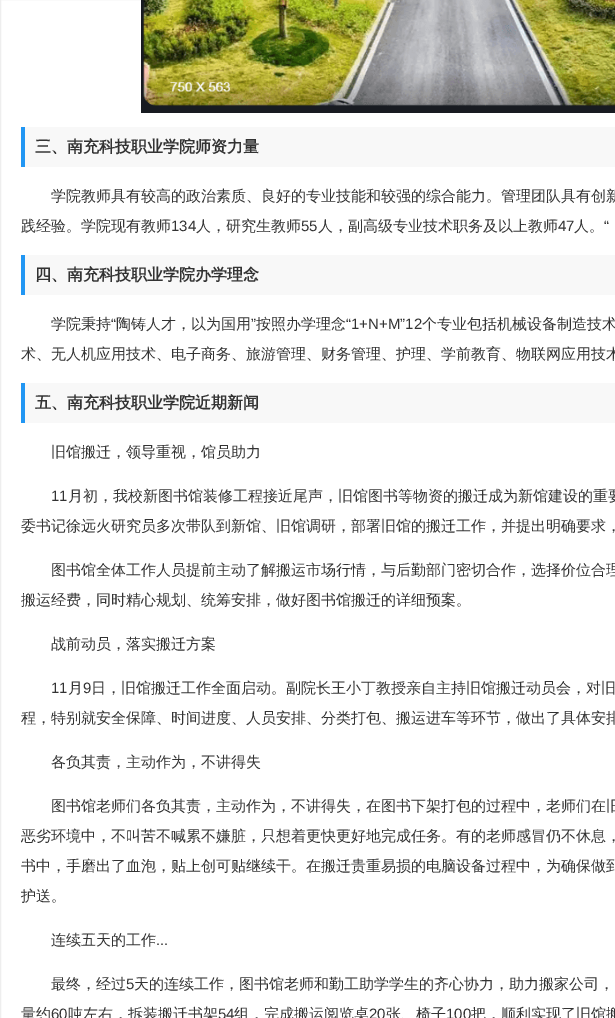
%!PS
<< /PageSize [615 1018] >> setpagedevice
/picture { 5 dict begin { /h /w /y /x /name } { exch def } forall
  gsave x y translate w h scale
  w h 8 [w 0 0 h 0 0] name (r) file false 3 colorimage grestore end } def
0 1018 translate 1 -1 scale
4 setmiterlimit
1 setgray
0 0 615 1018 rectfill
0.933 setgray
0.5 -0.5 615 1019 rectstroke
(img1.rgb) 141 0 474 113 picture
0.973 setgray
25 127 590 40 rectfill
0.129 0.588 0.953 setrgbcolor
21 127 4 40 rectfill
/WenQuanYiZenHei-Bold [16 0 0 -16 0 0] selectfont
0.2 setgray
35 152 moveto (三、南充科技职业学院师资力量) show
/WenQuanYiZenHei-Medium [15 0 0 -15 0 0] selectfont
51 201 moveto (学院教师具有较高的政治素质、良好的专业技能和较强的综合能力。管理团队具有创新) show
21 231 moveto (践经验。学院现有教师) show
/LiberationSans-Regular [15 0 0 -15 0 0] selectfont
171 231 moveto (134) show
/WenQuanYiZenHei-Medium [15 0 0 -15 0 0] selectfont
196 231 moveto (人，研究生教师) show
/LiberationSans-Regular [15 0 0 -15 0 0] selectfont
301 231 moveto (55) show
/WenQuanYiZenHei-Medium [15 0 0 -15 0 0] selectfont
318 231 moveto (人，副高级专业技术职务及以上教师) show
/LiberationSans-Regular [15 0 0 -15 0 0] selectfont
558 231 moveto (47) show
/WenQuanYiZenHei-Medium [15 0 0 -15 0 0] selectfont
574 231 moveto (人。) show
/LiberationSans-Regular [15 0 0 -15 0 0] selectfont
604 231 moveto (“) show
0.973 setgray
25 255 590 40 rectfill
0.129 0.588 0.953 setrgbcolor
21 255 4 40 rectfill
/WenQuanYiZenHei-Bold [16 0 0 -16 0 0] selectfont
0.2 setgray
35 280 moveto (四、南充科技职业学院办学理念) show
/WenQuanYiZenHei-Medium [15 0 0 -15 0 0] selectfont
51 329 moveto (学院秉持) show
/LiberationSans-Regular [15 0 0 -15 0 0] selectfont
111 329 moveto (“) show
/WenQuanYiZenHei-Medium [15 0 0 -15 0 0] selectfont
116 329 moveto (陶铸人才，以为国用) show
/LiberationSans-Regular [15 0 0 -15 0 0] selectfont
251 329 moveto (”) show
/WenQuanYiZenHei-Medium [15 0 0 -15 0 0] selectfont
256 329 moveto (按照办学理念) show
/LiberationSans-Regular [15 0 0 -15 0 0] selectfont
346 329 moveto (“1+N+M”12) show
/WenQuanYiZenHei-Medium [15 0 0 -15 0 0] selectfont
422 329 moveto (个专业包括机械设备制造技术) show
21 359 moveto (术、无人机应用技术、电子商务、旅游管理、财务管理、护理、学前教育、物联网应用技术) show
0.973 setgray
25 383 590 40 rectfill
0.129 0.588 0.953 setrgbcolor
21 383 4 40 rectfill
/WenQuanYiZenHei-Bold [16 0 0 -16 0 0] selectfont
0.2 setgray
35 408 moveto (五、南充科技职业学院近期新闻) show
/WenQuanYiZenHei-Medium [15 0 0 -15 0 0] selectfont
51 457 moveto (旧馆搬迁，领导重视，馆员助力) show
/LiberationSans-Regular [15 0 0 -15 0 0] selectfont
51 501 moveto (11) show
/WenQuanYiZenHei-Medium [15 0 0 -15 0 0] selectfont
68 501 moveto (月初，我校新图书馆装修工程接近尾声，旧馆图书等物资的搬迁成为新馆建设的重要) show
21 531 moveto (委书记徐远火研究员多次带队到新馆、旧馆调研，部署旧馆的搬迁工作，并提出明确要求，) show
51 575 moveto (图书馆全体工作人员提前主动了解搬运市场行情，与后勤部门密切合作，选择价位合理) show
21 605 moveto (搬运经费，同时精心规划、统筹安排，做好图书馆搬迁的详细预案。) show
51 649 moveto (战前动员，落实搬迁方案) show
/LiberationSans-Regular [15 0 0 -15 0 0] selectfont
51 693 moveto (11) show
/WenQuanYiZenHei-Medium [15 0 0 -15 0 0] selectfont
68 693 moveto (月) show
/LiberationSans-Regular [15 0 0 -15 0 0] selectfont
83 693 moveto (9) show
/WenQuanYiZenHei-Medium [15 0 0 -15 0 0] selectfont
91 693 moveto (日，旧馆搬迁工作全面启动。副院长王小丁教授亲自主持旧馆搬迁动员会，对旧) show
21 723 moveto (程，特别就安全保障、时间进度、人员安排、分类打包、搬运进车等环节，做出了具体安排) show
51 767 moveto (各负其责，主动作为，不讲得失) show
51 811 moveto (图书馆老师们各负其责，主动作为，不讲得失，在图书下架打包的过程中，老师们在旧) show
21 841 moveto (恶劣环境中，不叫苦不喊累不嫌脏，只想着更快更好地完成任务。有的老师感冒仍不休息，) show
21 871 moveto (书中，手磨出了血泡，贴上创可贴继续干。在搬迁贵重易损的电脑设备过程中，为确保做到) show
21 901 moveto (护送。) show
51 945 moveto (连续五天的工作) show
/LiberationSans-Regular [15 0 0 -15 0 0] selectfont
156 945 moveto (...) show
/WenQuanYiZenHei-Medium [15 0 0 -15 0 0] selectfont
51 989 moveto (最终，经过) show
/LiberationSans-Regular [15 0 0 -15 0 0] selectfont
126 989 moveto (5) show
/WenQuanYiZenHei-Medium [15 0 0 -15 0 0] selectfont
134 989 moveto (天的连续工作，图书馆老师和勤工助学学生的齐心协力，助力搬家公司，) show
21 1019 moveto (量约) show
/LiberationSans-Regular [15 0 0 -15 0 0] selectfont
51 1019 moveto (60) show
/WenQuanYiZenHei-Medium [15 0 0 -15 0 0] selectfont
68 1019 moveto (吨左右，拆装搬迁书架) show
/LiberationSans-Regular [15 0 0 -15 0 0] selectfont
218 1019 moveto (54) show
/WenQuanYiZenHei-Medium [15 0 0 -15 0 0] selectfont
234 1019 moveto (组，完成搬运阅览桌) show
/LiberationSans-Regular [15 0 0 -15 0 0] selectfont
369 1019 moveto (20) show
/WenQuanYiZenHei-Medium [15 0 0 -15 0 0] selectfont
386 1019 moveto (张、椅子) show
/LiberationSans-Regular [15 0 0 -15 0 0] selectfont
446 1019 moveto (100) show
/WenQuanYiZenHei-Medium [15 0 0 -15 0 0] selectfont
471 1019 moveto (把，顺利实现了旧馆搬) show
showpage
